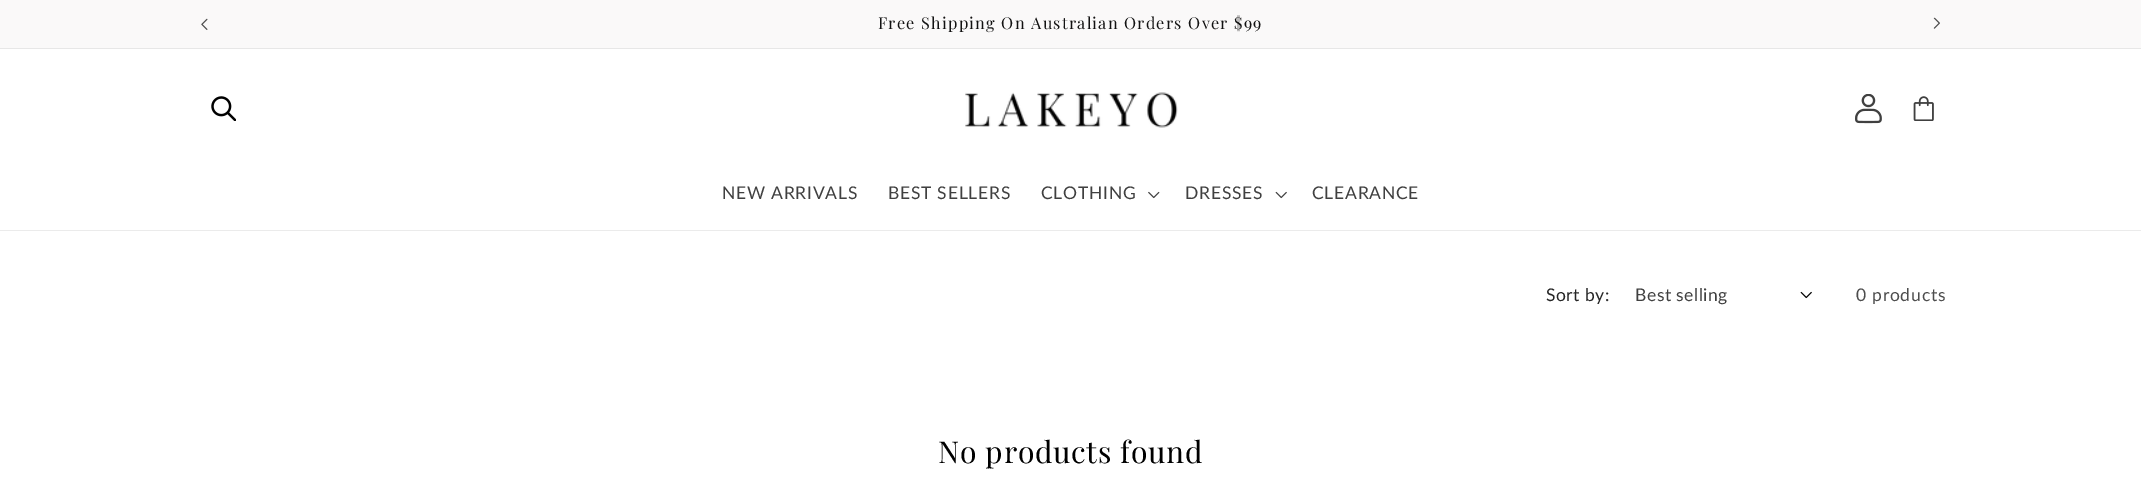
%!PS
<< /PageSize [2141 488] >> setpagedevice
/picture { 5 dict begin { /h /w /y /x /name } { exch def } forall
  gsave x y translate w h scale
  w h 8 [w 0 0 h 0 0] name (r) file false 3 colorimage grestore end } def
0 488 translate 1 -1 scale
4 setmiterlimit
1 setgray
0 0 2141 488 rectfill
0.98 0.976 0.976 setrgbcolor
0 0 2141 48 rectfill
0.906 setgray
0 48 2141 1 rectfill
(img1.rgb) 201 18 7 12 picture
/PlayfairDisplay-Regular [16.25 0 0 -16.25 0 0] selectfont
0.071 setgray
878 29 moveto 1.25 0 (Free Shipping On Australian Orders Over $99) ashow
(img2.rgb) 1933 17 7 12 picture
0.922 setgray
0 230 2141 1 rectfill
(img3.rgb) 211 96 25 25 picture
(img4.rgb) 965 92 213 36 picture
(img5.rgb) 1855 94 27 30 picture
(img6.rgb) 1913 96 21 25 picture
/Lato-Regular [17.5 0 0 -17.5 0 0] selectfont
0.251 setgray
722 199 moveto 0.75 0 (NEW ARRIVALS) ashow
888 199 moveto 0.75 0 (BEST SELLERS) ashow
1041 199 moveto 0.75 0 (CLOTHING) ashow
(img7.rgb) 1148 191 12 8 picture
1185 199 moveto 0.75 0 (DRESSES) ashow
(img8.rgb) 1275 191 12 8 picture
1312 199 moveto 0.75 0 (CLEARANCE) ashow
0.149 setgray
1546 301 moveto 0.5 0 (Sort by:) ashow
0.251 setgray
1635 301 moveto 0.5 0 (Best selling) ashow
(img9.rgb) 1800 291 12 8 picture
0.302 setgray
1856 301 moveto 0.75 0 (0 products) ashow
/PlayfairDisplay-Regular [30 0 0 -30 0 0] selectfont
0 setgray
938 463 moveto 0.75 0 (No products found) ashow
showpage
